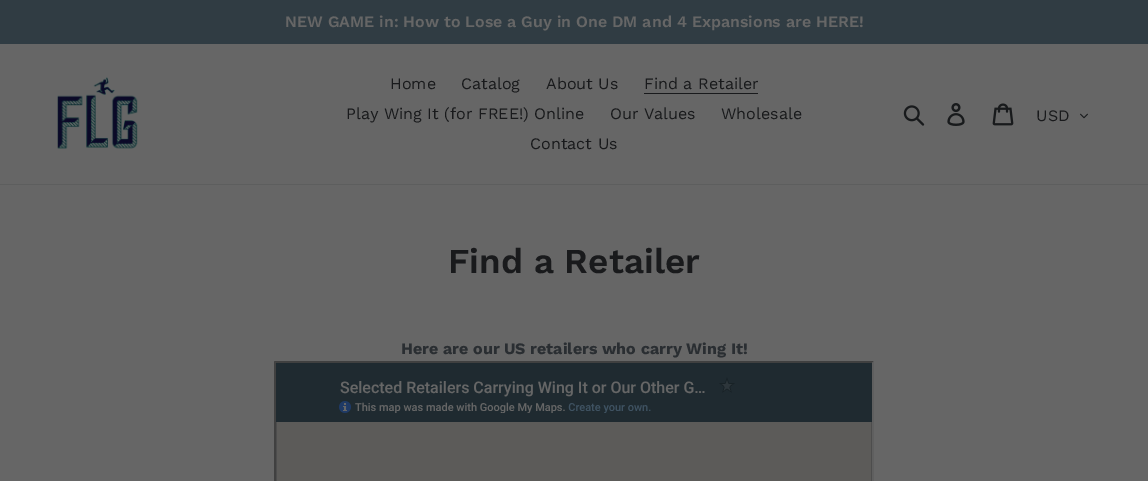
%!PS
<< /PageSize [1148 481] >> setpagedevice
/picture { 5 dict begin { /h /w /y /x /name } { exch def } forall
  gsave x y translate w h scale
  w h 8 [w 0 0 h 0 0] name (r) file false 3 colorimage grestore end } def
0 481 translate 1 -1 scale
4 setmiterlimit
0.4 setgray
0 0 1148 481 rectfill
0.188 0.235 0.263 setrgbcolor
0 0 1148 44 rectfill
/WorkSans-SemiBold [16 0 0 -16 0 0] selectfont
0.4 setgray
285 27 moveto (NEW GAME in: How to Lose a Guy in One DM and 4 Expansions are HERE!) show
0.365 0.369 0.369 setrgbcolor
0 184 1148 1 rectfill
(img1.rgb) 57 77 81 72 picture
/WorkSans-Regular [16 0 0 -16 0 0] selectfont
0.098 0.102 0.11 setrgbcolor
390 89 moveto (Home) show
461 89 moveto (Catalog) show
546 89 moveto (About Us) show
644 89 moveto (Find a Retailer) show
644 93 114 1 rectfill
346 119 moveto (Play Wing It \(for FREE!\) Online) show
610 119 moveto (Our Values) show
721 119 moveto (Wholesale) show
530 149 moveto (Contact Us) show
(img2.rgb) 903 105 22 21 picture
(img3.rgb) 947 103 18 23 picture
(img4.rgb) 992 103 22 23 picture
1036 121 moveto (USD) show
(img5.rgb) 1080 113 8 6 picture
/WorkSans-SemiBold [35 0 0 -35 0 0] selectfont
448 273 moveto (Find a Retailer) show
/WorkSans-Bold [16 0 0 -16 0 0] selectfont
0.165 0.18 0.196 setrgbcolor
401 354 moveto (Here are our US retailers who carry Wing It!) show
0.251 setgray
newpath 274 361 moveto 874 361 lineto 872 363 lineto 276 363 lineto closepath fill
newpath 274 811 moveto 274 361 lineto 276 363 lineto 276 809 lineto closepath fill
(img6.rgb) 276 363 596 118 picture
0.373 setgray
newpath 874 361 moveto 874 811 lineto 872 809 lineto 872 363 lineto closepath fill
showpage
